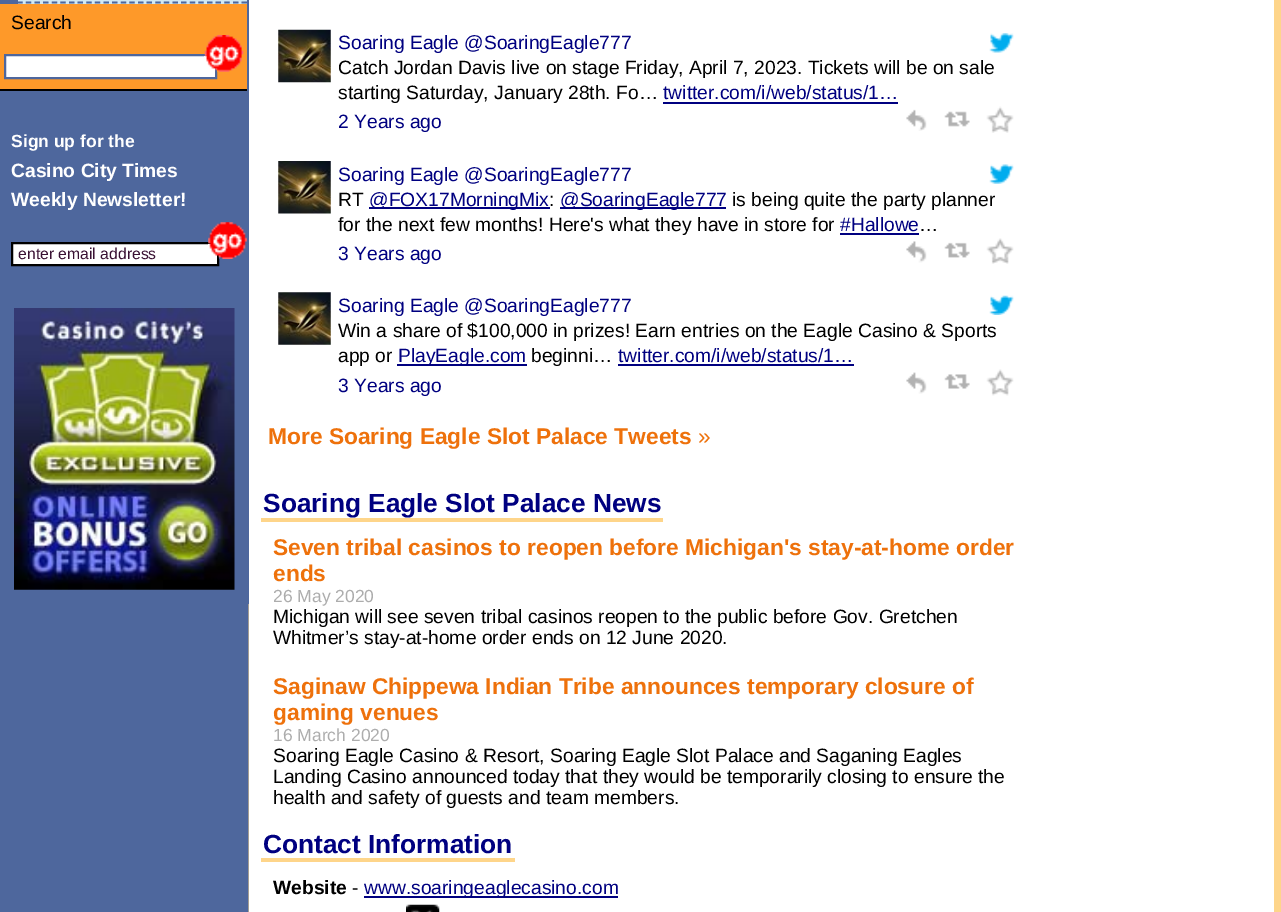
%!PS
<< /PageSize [1281 912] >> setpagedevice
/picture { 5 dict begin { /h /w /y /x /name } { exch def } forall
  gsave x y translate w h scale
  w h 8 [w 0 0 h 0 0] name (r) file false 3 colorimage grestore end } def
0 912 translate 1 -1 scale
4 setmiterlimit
1 setgray
0 0 1281 912 rectfill
(img1.rgb) 0 0 1281 912 picture
0.306 0.404 0.616 setrgbcolor
248 0 1 604 rectfill
0.82 0.914 0.957 setrgbcolor
18 0 229 4 rectfill
0.306 0.404 0.616 setrgbcolor
1.8 setlinewidth
[5.25 3.38] 0 setdash
newpath 0 2.5 moveto 247 2.5 lineto stroke
0.996 0.6 0.161 setrgbcolor
0 4 247 85 rectfill
0 setgray
0 89 247 2 rectfill
/LiberationSans-Regular [19.25 0 0 -19.25 0 0] selectfont
11 29 moveto (Search) show
1 setgray
newpath 5 55 moveto 216 55 lineto 216 78 lineto 5 78 lineto closepath gsave fill grestore
0.306 0.404 0.616 setrgbcolor
2 setlinewidth
[] 0 setdash
stroke
(img2.rgb) 204 35 40 37 picture
/LiberationSans-Bold [17.5 0 0 -17.5 0 0] selectfont
1 setgray
11 147 moveto (Sign up for the) show
/LiberationSans-Bold [19.25 0 0 -19.25 0 0] selectfont
11 177 moveto (Casino City Times) show
11 206 moveto (Weekly Newsletter!) show
newpath 12 243 moveto 218 243 lineto 218 265 lineto 12 265 lineto closepath gsave fill grestore
0 setgray
stroke
/LiberationSans-Regular [15.75 0 0 -15.75 0 0] selectfont
0.224 0.067 0.2 setrgbcolor
18 259 moveto (enter email address) show
(img3.rgb) 208 222 39 37 picture
(img4.rgb) 14 308 221 282 picture
1 setgray
249 0 1025 912 rectfill
(img5.rgb) 278 29 53 54 picture
/LiberationSans-Regular [19.25 0 0 -19.25 0 0] selectfont
0 0 0.502 setrgbcolor
338 49 moveto (Soaring Eagle @SoaringEagle777) show
(img6.rgb) 989 33 25 20 picture
0 setgray
338 74 moveto (Catch Jordan Davis live on stage Friday, April 7, 2023. Tickets will be on sale) show
338 99 moveto (starting Saturday, January 28th. Fo…) show
0 0 0.502 setrgbcolor
663 99 moveto (twitter.com/i/web/status/1…) show
663 102 235 2 rectfill
338 128 moveto (2 Years ago) show
(img7.rgb) 906 109 21 22 picture
(img8.rgb) 944 111 26 16 picture
(img9.rgb) 986 106 28 27 picture
(img10.rgb) 278 161 53 53 picture
338 181 moveto (Soaring Eagle @SoaringEagle777) show
(img11.rgb) 989 164 25 20 picture
0 setgray
338 206 moveto (RT) show
0 0 0.502 setrgbcolor
369 207 181 2 rectfill
369 206 moveto (@FOX17MorningMix) show
0 setgray
549 206 moveto (:) show
0 0 0.502 setrgbcolor
560 207 166 2 rectfill
560 206 moveto (@SoaringEagle777) show
0 setgray
732 206 moveto (is being quite the party planner) show
338 231 moveto (for the next few months! Here's what they have in store for) show
0 0 0.502 setrgbcolor
840 231 moveto (#Hallowe) show
840 233 79 2 rectfill
0 setgray
919 231 moveto (…) show
0 0 0.502 setrgbcolor
338 260 moveto (3 Years ago) show
(img12.rgb) 906 241 21 22 picture
(img13.rgb) 944 242 26 16 picture
(img14.rgb) 986 238 28 26 picture
(img15.rgb) 278 292 53 53 picture
338 312 moveto (Soaring Eagle @SoaringEagle777) show
(img16.rgb) 989 295 25 20 picture
0 setgray
338 337 moveto (Win a share of $100,000 in prizes! Earn entries on the Eagle Casino & Sports) show
338 362 moveto (app or) show
0 0 0.502 setrgbcolor
397 364 130 2 rectfill
398 362 moveto (PlayEagle.com) show
0 setgray
531 362 moveto (beginni…) show
0 0 0.502 setrgbcolor
618 362 moveto (twitter.com/i/web/status/1…) show
618 364 236 2 rectfill
338 392 moveto (3 Years ago) show
(img17.rgb) 906 372 21 22 picture
(img18.rgb) 944 374 26 15 picture
(img19.rgb) 986 369 28 27 picture
/LiberationSans-Bold [22.75 0 0 -22.75 0 0] selectfont
0.933 0.443 0.043 setrgbcolor
268 444 moveto (More Soaring Eagle Slot Palace Tweets) show
/LiberationSans-Regular [22.75 0 0 -22.75 0 0] selectfont
698 444 moveto (») show
/LiberationSans-Bold [26.25 0 0 -26.25 0 0] selectfont
0 0 0.502 setrgbcolor
263 512 moveto (Soaring Eagle Slot Palace News) show
0.996 0.835 0.541 setrgbcolor
261 518 402 4 rectfill
/LiberationSans-Bold [22.75 0 0 -22.75 0 0] selectfont
0.933 0.443 0.043 setrgbcolor
273 555 moveto (Seven tribal casinos to reopen before Michigan's stay-at-home order) show
273 581 moveto (ends) show
/LiberationSans-Regular [17.5 0 0 -17.5 0 0] selectfont
0.678 setgray
273 602 moveto (26 May 2020) show
/LiberationSans-Regular [19.25 0 0 -19.25 0 0] selectfont
0 setgray
273 623 moveto (Michigan will see seven tribal casinos reopen to the public before Gov. Gretchen) show
273 644 moveto (Whitmer’s stay-at-home order ends on 12 June 2020.) show
/LiberationSans-Bold [22.75 0 0 -22.75 0 0] selectfont
0.933 0.443 0.043 setrgbcolor
273 694 moveto (Saginaw Chippewa Indian Tribe announces temporary closure of) show
273 720 moveto (gaming venues) show
/LiberationSans-Regular [17.5 0 0 -17.5 0 0] selectfont
0.678 setgray
273 741 moveto (16 March 2020) show
/LiberationSans-Regular [19.25 0 0 -19.25 0 0] selectfont
0 setgray
273 762 moveto (Soaring Eagle Casino & Resort, Soaring Eagle Slot Palace and Saganing Eagles) show
273 783 moveto (Landing Casino announced today that they would be temporarily closing to ensure the) show
273 804 moveto (health and safety of guests and team members.) show
/LiberationSans-Bold [26.25 0 0 -26.25 0 0] selectfont
0 0 0.502 setrgbcolor
263 853 moveto (Contact Information) show
0.996 0.835 0.541 setrgbcolor
261 858 254 4 rectfill
/LiberationSans-Bold [19.25 0 0 -19.25 0 0] selectfont
0 setgray
273 894 moveto (Website) show
/LiberationSans-Regular [19.25 0 0 -19.25 0 0] selectfont
352 894 moveto (-) show
0 0 0.502 setrgbcolor
364 896 254 2 rectfill
364 894 moveto (www.soaringeaglecasino.com) show
(img20.rgb) 406 904 34 8 picture
showpage
